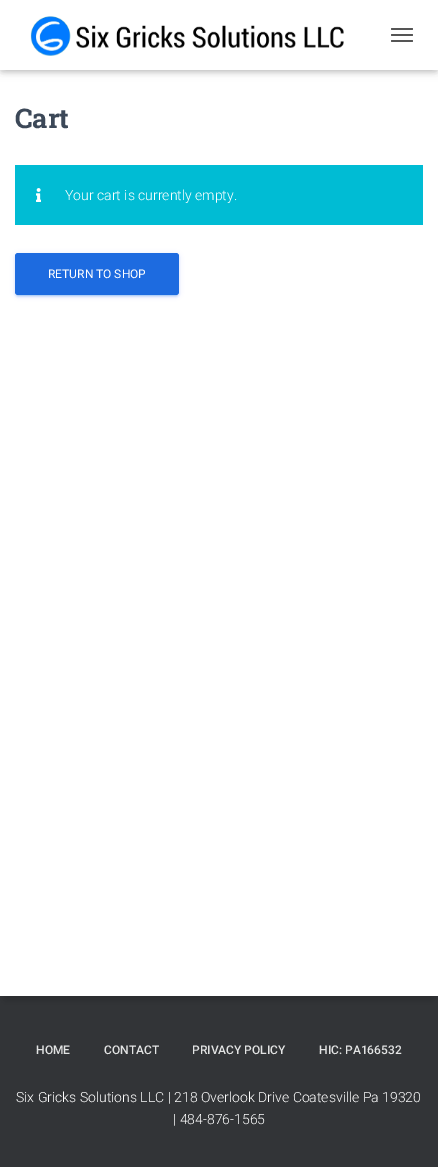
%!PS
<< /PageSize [438 1167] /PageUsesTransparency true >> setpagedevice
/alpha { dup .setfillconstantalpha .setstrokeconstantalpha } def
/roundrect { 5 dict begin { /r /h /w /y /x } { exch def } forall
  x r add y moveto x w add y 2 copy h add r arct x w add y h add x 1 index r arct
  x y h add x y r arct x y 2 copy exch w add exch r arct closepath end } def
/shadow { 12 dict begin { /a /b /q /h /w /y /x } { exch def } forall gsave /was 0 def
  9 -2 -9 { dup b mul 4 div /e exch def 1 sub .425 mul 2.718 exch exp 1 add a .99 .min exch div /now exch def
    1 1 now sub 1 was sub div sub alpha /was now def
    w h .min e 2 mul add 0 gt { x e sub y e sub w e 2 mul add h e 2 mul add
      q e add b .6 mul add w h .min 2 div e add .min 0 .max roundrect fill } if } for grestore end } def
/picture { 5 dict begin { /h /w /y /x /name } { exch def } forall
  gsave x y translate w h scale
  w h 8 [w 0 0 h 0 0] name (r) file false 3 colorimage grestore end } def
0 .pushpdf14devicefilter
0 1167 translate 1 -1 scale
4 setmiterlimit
0.196 0.204 0.216 setrgbcolor
0 0 438 1167 rectfill
0 setgray
5 43 428 956 0 5 0.2 shadow
1 setgray
0 70 438 926 rectfill
0 setgray
2 6 434 66 0 2.5 0.1 shadow
0 1 438 70 0 5 0.12 shadow
6 7 426 58 0 5 0.42 shadow
1 setgray
0 0 438 70 rectfill
(img1.rgb) 30 16 314 40 picture
0.333 setgray
391 28 22 2 1 roundrect fill
391 34 22 2 1 roundrect fill
391 40 22 2 1 roundrect fill
/RobotoSlab-Bold [27 0 0 -27 0 0] selectfont
0.235 0.282 0.345 setrgbcolor
15 128 moveto (Cart) show
0 0.737 0.831 setrgbcolor
15 165 408 60 rectfill
(img2.rgb) 36 188 5 14 picture
/Roboto-Light [14 0 0 -14 0 0] selectfont
1 setgray
65 200 moveto (Your cart is currently empty.) show
0.114 0.42 0.878 setrgbcolor
15 254 164 42 3 2.5 0.12 shadow
17 258 160 38 1 0.5 0.2 shadow
15 255 164 42 3 1 0.14 shadow
15 253 164 42 3 roundrect fill
/Roboto-Regular [12 0 0 -12 0 0] selectfont
1 setgray
48 278 moveto (RETURN TO SHOP) show
/Roboto-Medium [12 0 0 -12 0 0] selectfont
0.886 0.89 0.89 setrgbcolor
36 1054 moveto (HOME) show
104 1054 moveto (CONTACT) show
192 1054 moveto (PRIVACY POLICY) show
319 1054 moveto (HIC: PA166532) show
/Roboto-Light [14 0 0 -14 0 0] selectfont
1 setgray
16 1102 moveto (Six Gricks Solutions LLC | 218 Overlook Drive Coatesville Pa 19320) show
173 1124 moveto (| 484-876-1565) show
.poppdf14devicefilter showpage
